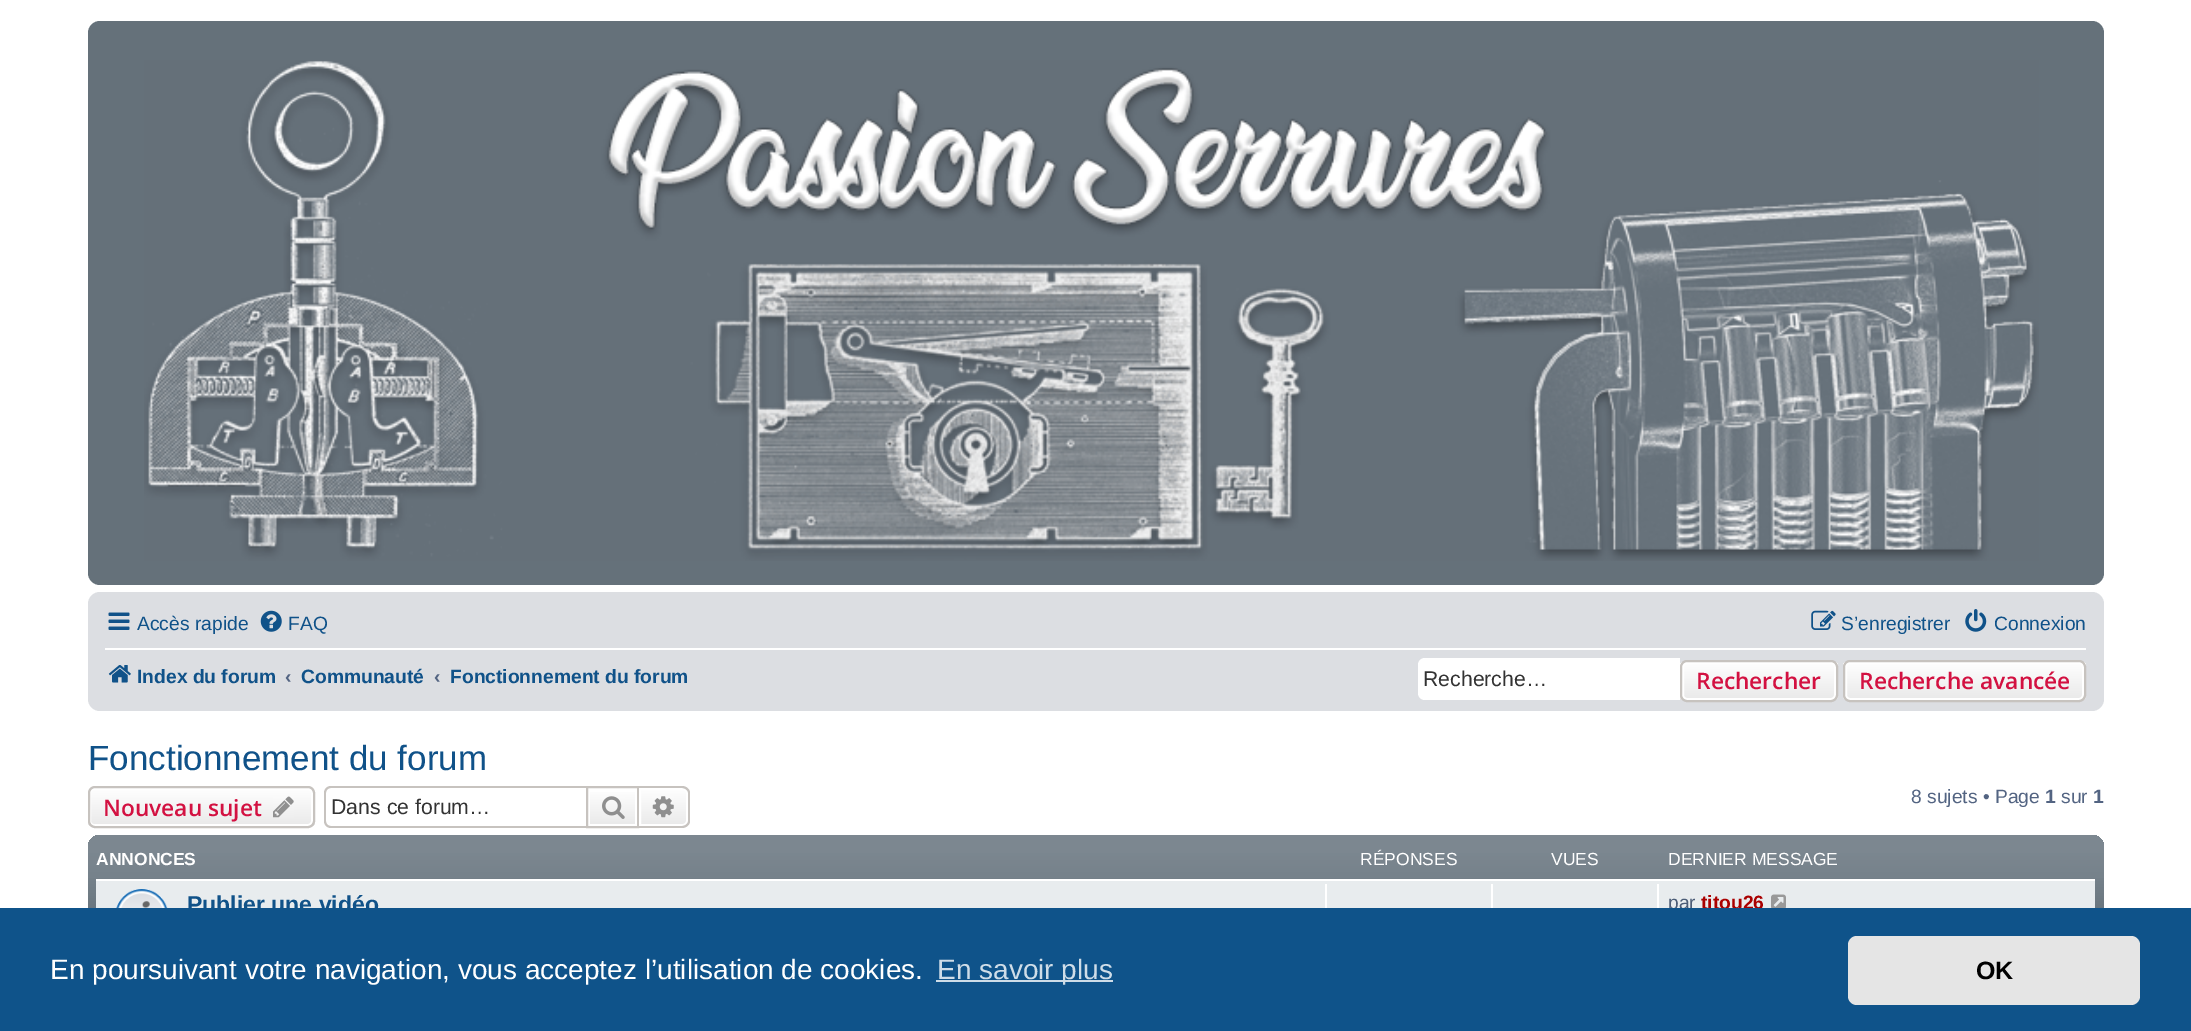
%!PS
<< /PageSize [2191 1031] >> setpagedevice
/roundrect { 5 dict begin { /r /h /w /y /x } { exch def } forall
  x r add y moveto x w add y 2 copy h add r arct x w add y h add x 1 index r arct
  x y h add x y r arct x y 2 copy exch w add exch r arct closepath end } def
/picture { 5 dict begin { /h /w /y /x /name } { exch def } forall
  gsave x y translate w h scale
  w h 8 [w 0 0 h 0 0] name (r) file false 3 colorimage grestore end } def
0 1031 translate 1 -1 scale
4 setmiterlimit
1 setgray
0 0 2191 1031 rectfill
0.396 0.443 0.478 setrgbcolor
88 21 2016 564 12 roundrect fill
(img1.rgb) 144 60 1895 501 picture
0.863 0.871 0.886 setrgbcolor
88 592 2016 119 12 roundrect fill
(img2.rgb) 108 612 22 18 picture
/LiberationSans-Regular [19.25 0 0 -19.25 0 0] selectfont
0.063 0.322 0.537 setrgbcolor
137 630 moveto (Accès rapide) show
(img3.rgb) 260 610 22 22 picture
288 630 moveto (FAQ) show
(img4.rgb) 1811 610 25 20 picture
1841 630 moveto (S’enregistrer) show
(img5.rgb) 1965 609 22 23 picture
1994 630 moveto (Connexion) show
1 setgray
105 648 1981 2 rectfill
(img6.rgb) 108 665 23 18 picture
/LiberationSans-Bold [19.25 0 0 -19.25 0 0] selectfont
0.063 0.322 0.537 setrgbcolor
137 683 moveto (Index du forum) show
0.325 0.392 0.51 setrgbcolor
285 683 moveto (‹) show
0.063 0.322 0.537 setrgbcolor
301 683 moveto (Communauté) show
0.325 0.392 0.51 setrgbcolor
434 683 moveto (‹) show
0.063 0.322 0.537 setrgbcolor
450 683 moveto (Fonctionnement du forum) show
1 setgray
newpath 1425 658 moveto 1680 658 lineto 1680 700 lineto 1425 700 lineto 1421 700 1418 697 1418 693 curveto 1418 665 lineto 1418 661 1421 658 1425 658 curveto closepath fill
/LiberationSans-Regular [21.25 0 0 -21.25 0 0] selectfont
0.2 setgray
1423 686 moveto (Recherche…) show
gsave
1680 660 158 42 7 roundrect clip newpath
gsave newpath 1680 662 moveto 1838 662 lineto 1838 700 lineto 1680 700 lineto closepath clip newpath
<< /ShadingType 2 /ColorSpace /DeviceRGB /Coords [1759 662 1759 700] /Extend [true true] /Function << /FunctionType 2 /Domain [0 1] /C0 [1 1 1] /C1 [0.914 0.914 0.914] /N 1 >> >> shfill grestore
grestore
1 setgray
2 setlinewidth
1683 663 152 36 4 roundrect stroke
0.78 0.765 0.749 setrgbcolor
1681 661 156 40 6 roundrect stroke
/OpenSans-SemiBold [22.75 0 0 -22.75 0 0] selectfont
0.827 0.067 0.255 setrgbcolor
1696 689 moveto (Rechercher) show
gsave
1843 660 243 42 7 roundrect clip newpath
gsave newpath 1843 662 moveto 2086 662 lineto 2086 700 lineto 1843 700 lineto closepath clip newpath
<< /ShadingType 2 /ColorSpace /DeviceRGB /Coords [1964 662 1964 700] /Extend [true true] /Function << /FunctionType 2 /Domain [0 1] /C0 [1 1 1] /C1 [0.914 0.914 0.914] /N 1 >> >> shfill grestore
grestore
1 setgray
1846 663 237 36 4 roundrect stroke
0.78 0.765 0.749 setrgbcolor
1844 661 241 40 6 roundrect stroke
0.827 0.067 0.255 setrgbcolor
1859 689 moveto (Recherche avancée) show
/LiberationSans-Regular [35 0 0 -35 0 0] selectfont
0.063 0.322 0.537 setrgbcolor
88 770 moveto (Fonctionnement du forum) show
gsave
88 786 227 42 7 roundrect clip newpath
gsave newpath 88 788 moveto 315 788 lineto 315 826 lineto 88 826 lineto closepath clip newpath
<< /ShadingType 2 /ColorSpace /DeviceRGB /Coords [201 788 201 826] /Extend [true true] /Function << /FunctionType 2 /Domain [0 1] /C0 [1 1 1] /C1 [0.914 0.914 0.914] /N 1 >> >> shfill grestore
grestore
1 setgray
90 789 222 36 4 roundrect stroke
0.78 0.765 0.749 setrgbcolor
89 787 225 40 6 roundrect stroke
/OpenSans-SemiBold [22.75 0 0 -22.75 0 0] selectfont
0.827 0.067 0.255 setrgbcolor
103 816 moveto (Nouveau sujet) show
(img7.rgb) 273 796 21 22 picture
0.78 0.765 0.749 setrgbcolor
newpath 331 786 moveto 586 786 lineto 586 828 lineto 331 828 lineto 327 828 324 825 324 821 curveto 324 793 lineto 324 789 327 786 331 786 curveto closepath 331 788 moveto 586 788 lineto 586 826 lineto 331 826 lineto 328 826 326 824 326 821 curveto 326 793 lineto 326 790 328 788 331 788 curveto closepath eofill
/LiberationSans-Regular [21.25 0 0 -21.25 0 0] selectfont
0.2 setgray
331 814 moveto (Dans ce forum…) show
gsave newpath 590 792 moveto 635 792 lineto 635 824 lineto 590 824 lineto closepath clip newpath
<< /ShadingType 2 /ColorSpace /DeviceRGB /Coords [613 788 613 826] /Extend [true true] /Function << /FunctionType 2 /Domain [0 1] /C0 [1 1 1] /C1 [0.914 0.914 0.914] /N 1 >> >> shfill grestore
0.78 0.765 0.749 setrgbcolor
587 787 51 40 rectstroke
(img8.rgb) 602 796 23 23 picture
gsave newpath 640 789 moveto 683 789 lineto 685 789 687 791 687 793 curveto 687 821 lineto 687 823 685 825 683 825 curveto 640 825 lineto closepath clip newpath
<< /ShadingType 2 /ColorSpace /DeviceRGB /Coords [663 788 663 826] /Extend [true true] /Function << /FunctionType 2 /Domain [0 1] /C0 [1 1 1] /C1 [0.914 0.914 0.914] /N 1 >> >> shfill grestore
1 setgray
newpath 640 789 moveto 683 789 lineto 685 789 687 791 687 793 curveto 687 821 lineto 687 823 685 825 683 825 curveto 640 825 lineto closepath stroke
0.78 0.765 0.749 setrgbcolor
newpath 639 786 moveto 682 786 lineto 686 786 690 789 690 793 curveto 690 821 lineto 690 825 686 828 682 828 curveto 639 828 lineto closepath 639 788 moveto 682 788 lineto 685 788 688 790 688 793 curveto 688 821 lineto 688 824 685 826 682 826 curveto 639 826 lineto closepath eofill
(img9.rgb) 652 796 22 22 picture
/LiberationSans-Regular [19.25 0 0 -19.25 0 0] selectfont
0.325 0.392 0.51 setrgbcolor
1911 803 moveto (8 sujets • Page) show
/LiberationSans-Bold [19.25 0 0 -19.25 0 0] selectfont
2045 803 moveto (1) show
/LiberationSans-Regular [19.25 0 0 -19.25 0 0] selectfont
2061 803 moveto (sur) show
/LiberationSans-Bold [19.25 0 0 -19.25 0 0] selectfont
2093 803 moveto (1) show
gsave 88 835 2016 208 12 roundrect clip newpath
<< /ShadingType 2 /ColorSpace /DeviceRGB /Coords [1096 835 1096 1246] /Extend [true true] /Function << /FunctionType 3 /Domain [0 1] /Functions [<< /FunctionType 2 /Domain [0 1] /C0 [0.486 0.533 0.569] /C1 [0.486 0.529 0.565] /N 1 >> << /FunctionType 2 /Domain [0 1] /C0 [0.486 0.529 0.565] /C1 [0.463 0.51 0.545] /N 1 >> << /FunctionType 2 /Domain [0 1] /C0 [0.463 0.51 0.545] /C1 [0.357 0.4 0.435] /N 1 >> << /FunctionType 2 /Domain [0 1] /C0 [0.357 0.4 0.435] /C1 [0.314 0.361 0.396] /N 1 >> << /FunctionType 2 /Domain [0 1] /C0 [0.314 0.361 0.396] /C1 [0.314 0.361 0.396] /N 1 >>] /Bounds [0.04 0.1 0.29 0.38] /Encode [0 1 0 1 0 1 0 1 0 1] >> >> shfill grestore
/LiberationSans-Bold [17.5 0 0 -17.5 0 0] selectfont
1 setgray
96 865 moveto (ANNONCES) show
/LiberationSans-Regular [17.5 0 0 -17.5 0 0] selectfont
1360 865 moveto (RÉPONSES) show
1551 865 moveto (VUES) show
1668 865 moveto (DERNIER MESSAGE) show
0.91 0.925 0.933 setrgbcolor
96 881 1999 27 rectfill
1 setgray
96 879 1999 2 rectfill
(img10.rgb) 116 889 52 19 picture
/LiberationSans-Bold [23 0 0 -23 0 0] selectfont
0.063 0.322 0.537 setrgbcolor
187 912 moveto (Publier une vidéo) show
1 setgray
1325 884 2 24 rectfill
1491 884 2 24 rectfill
1657 884 2 24 rectfill
/LiberationSans-Regular [19.25 0 0 -19.25 0 0] selectfont
0.298 0.365 0.467 setrgbcolor
1668 909 moveto (par) show
/LiberationSans-Bold [19.25 0 0 -19.25 0 0] selectfont
0.667 0 0 setrgbcolor
1701 909 moveto (titou26) show
(img11.rgb) 1771 894 15 14 picture
0.059 0.325 0.541 setrgbcolor
0 908 2191 123 rectfill
/LiberationSans-Regular [28 0 0 -28 0 0] selectfont
1 setgray
50 979 moveto (En poursuivant votre navigation, vous acceptez l’utilisation de cookies.) show
0.812 0.867 0.91 setrgbcolor
936 980 177 2 rectfill
937 979 moveto (En savoir plus) show
0.898 setgray
1848 936 292 69 9 roundrect fill
/LiberationSans-Bold [25 0 0 -25 0 0] selectfont
0 setgray
1976 979 moveto (OK) show
showpage
